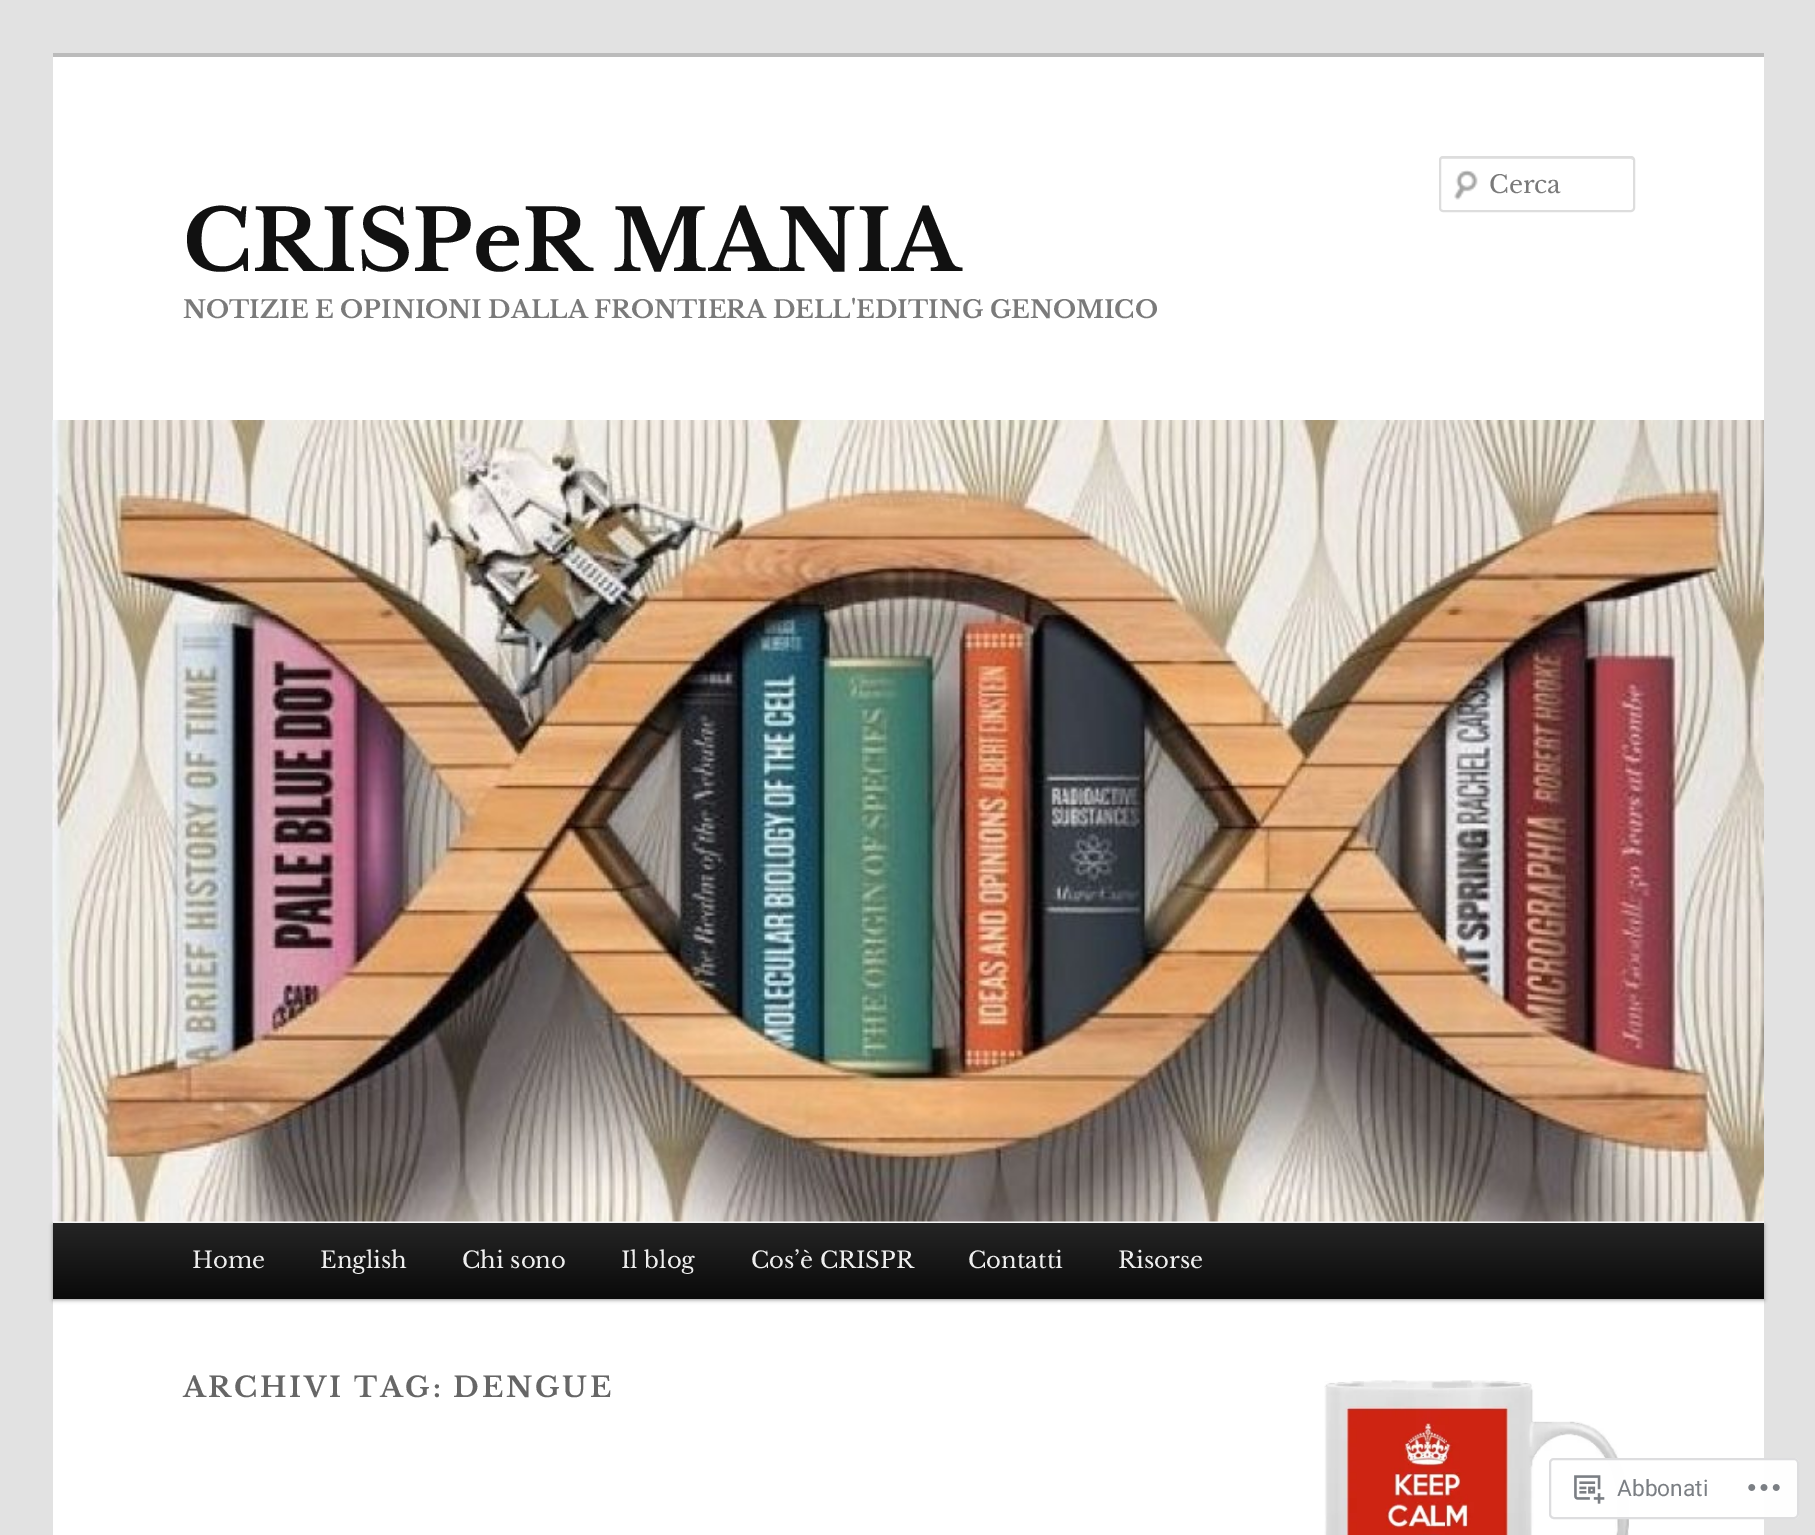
%!PS
<< /PageSize [1815 1535] /PageUsesTransparency true >> setpagedevice
/alpha { dup .setfillconstantalpha .setstrokeconstantalpha } def
/roundrect { 5 dict begin { /r /h /w /y /x } { exch def } forall
  x r add y moveto x w add y 2 copy h add r arct x w add y h add x 1 index r arct
  x y h add x y r arct x y 2 copy exch w add exch r arct closepath end } def
/shadow { 12 dict begin { /a /b /q /h /w /y /x } { exch def } forall gsave /was 0 def
  9 -2 -9 { dup b mul 4 div /e exch def 1 sub .425 mul 2.718 exch exp 1 add a .99 .min exch div /now exch def
    1 1 now sub 1 was sub div sub alpha /was now def
    w h .min e 2 mul add 0 gt { x e sub y e sub w e 2 mul add h e 2 mul add
      q e add b .6 mul add w h .min 2 div e add .min 0 .max roundrect fill } if } for grestore end } def
/picture { 5 dict begin { /h /w /y /x /name } { exch def } forall
  gsave x y translate w h scale
  w h 8 [w 0 0 h 0 0] name (r) file false 3 colorimage grestore end } def
0 .pushpdf14devicefilter
0 1535 translate 1 -1 scale
4 setmiterlimit
0.886 setgray
0 0 1815 1535 rectfill
1 setgray
53 57 1711 1478 rectfill
0.733 setgray
53 53 1711 4 rectfill
(img1.rgb) 1454 170 24 30 picture
0.902 setgray
newpath 1442 159 moveto 1631 159 lineto 1633 160 lineto 1633 161 lineto 1633 160 lineto 1633 159 1632 158 1631 158 curveto 1442 158 lineto 1441 158 1440 159 1440 160 curveto 1440 161 lineto 1440 160 1441 159 1442 159 curveto closepath fill
0.867 setgray
2 setlinewidth
1440 157 194 54 3 roundrect stroke
/LibreBaskerville-Regular [24.5 0 0 -24.5 0 0] selectfont
0.478 setgray
1489 193 moveto (Cerca) show
/LibreBaskerville-Bold [84 0 0 -84 0 0] selectfont
0.067 setgray
183 271 moveto (CRISPeR MANIA) show
/LibreBaskerville-Bold [24.5 0 0 -24.5 0 0] selectfont
0.478 setgray
183 318 moveto (NOTIZIE E OPINIONI DALLA FRONTIERA DELL'EDITING GENOMICO) show
0 setgray
53 1225 1711 75 0 2 0.4 shadow
(img2.rgb) 52 420 1712 802 picture
gsave newpath 53 1223 moveto 1764 1223 lineto 1764 1299 lineto 53 1299 lineto closepath clip newpath
<< /ShadingType 2 /ColorSpace /DeviceRGB /Coords [908 1223 908 1299] /Extend [true true] /Function << /FunctionType 2 /Domain [0 1] /C0 [0.145 0.145 0.145] /C1 [0.039 0.039 0.039] /N 1 >> >> shfill grestore
/LibreBaskerville-Regular [22.75 0 0 -22.75 0 0] selectfont
0.933 setgray
192 1268 moveto (Home) show
320 1268 moveto (English) show
462 1268 moveto (Chi sono) show
621 1268 moveto (Il blog) show
751 1268 moveto (Cos’è CRISPR) show
968 1268 moveto (Contatti) show
1118 1268 moveto (Risorse) show
/LibreBaskerville-Bold [28 0 0 -28 0 0] selectfont
0.4 setgray
183 1397 moveto 2.75 0 (ARCHIVI TAG: DENGUE) ashow
(img3.rgb) 1324 1380 306 155 picture
0.98 alpha
1 setgray
1549 1458 250 61 5 roundrect fill
0.863 0.863 0.871 setrgbcolor
1550 1459 248 59 4 roundrect stroke
1 alpha
(img4.rgb) 1574 1475 31 29 picture
/Roboto-Regular [22.75 0 0 -22.75 0 0] selectfont
0.482 0.498 0.518 setrgbcolor
1617 1496 moveto (Abbonati) show
(img5.rgb) 1748 1484 32 7 picture
.poppdf14devicefilter showpage
